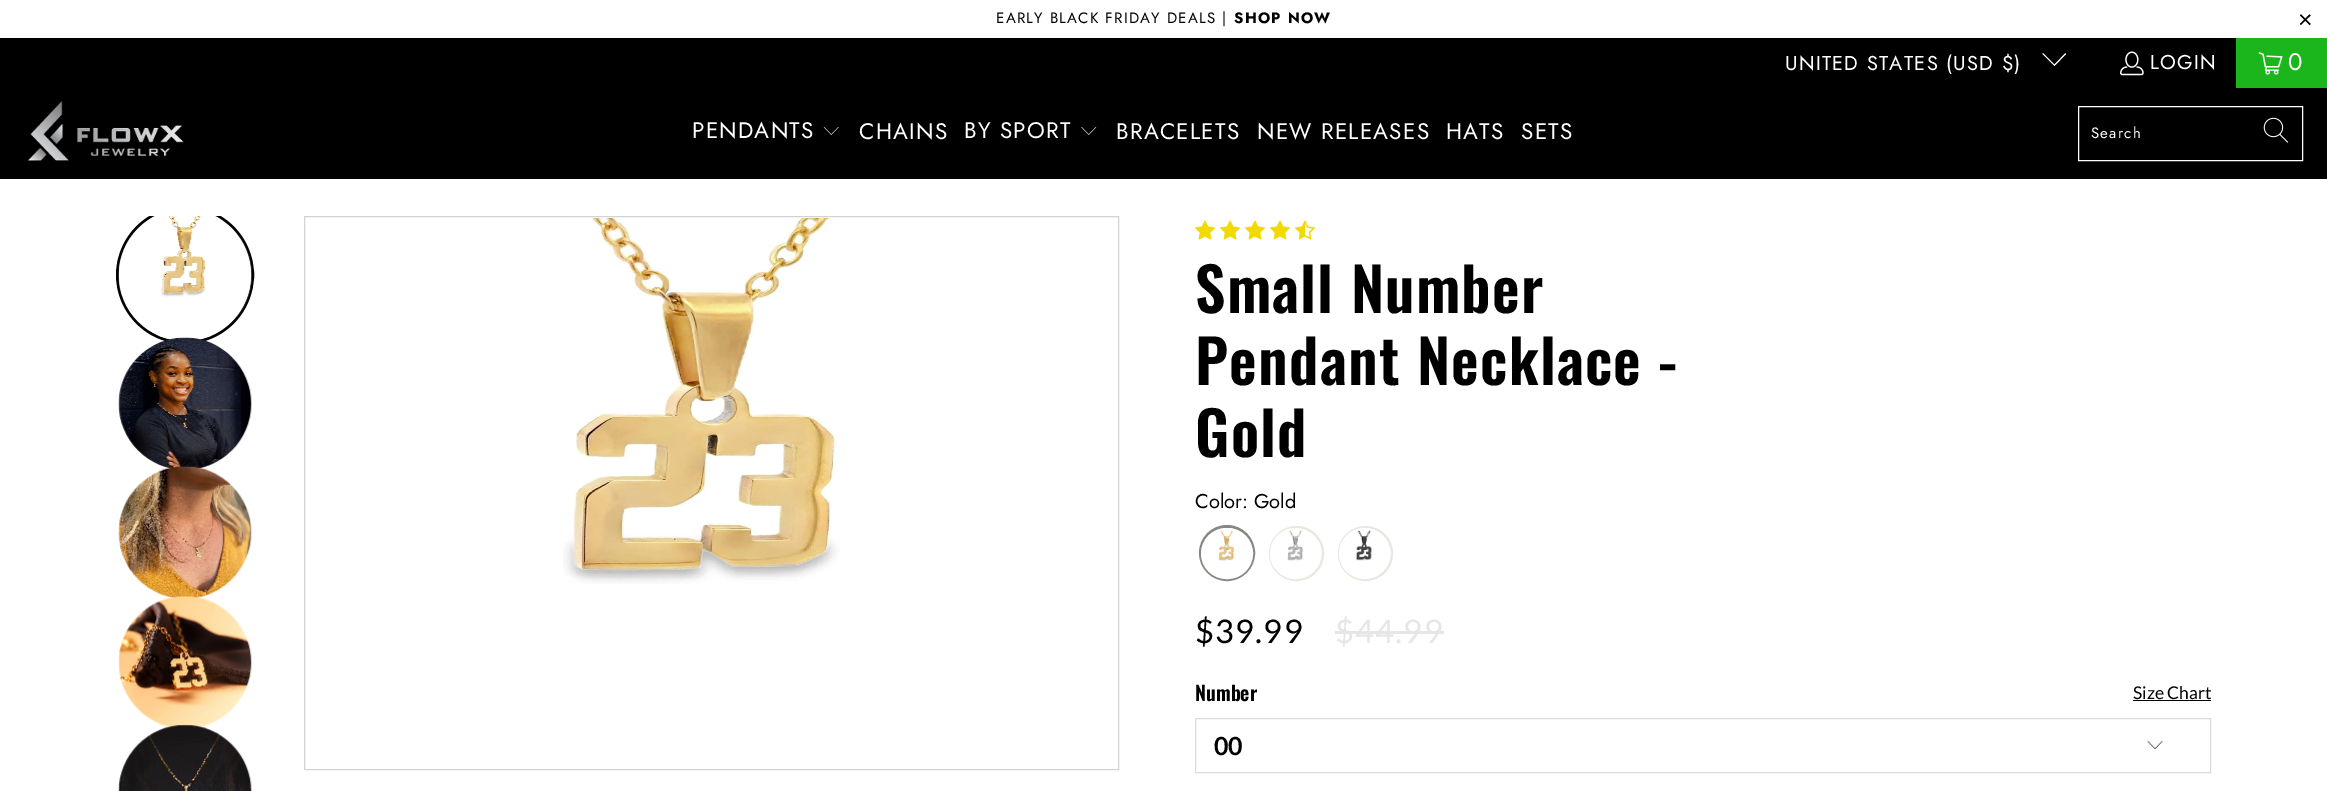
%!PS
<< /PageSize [2327 791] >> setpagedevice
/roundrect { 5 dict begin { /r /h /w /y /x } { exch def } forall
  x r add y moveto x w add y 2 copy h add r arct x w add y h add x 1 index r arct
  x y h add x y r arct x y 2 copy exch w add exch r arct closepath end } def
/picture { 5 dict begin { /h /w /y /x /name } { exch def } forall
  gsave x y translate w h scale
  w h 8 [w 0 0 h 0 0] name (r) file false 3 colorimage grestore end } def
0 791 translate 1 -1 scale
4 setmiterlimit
1 setgray
0 0 2327 791 rectfill
/Jost-Regular [15 0 0 -15 0 0] selectfont
0 setgray
996 23 moveto 1.25 0 (EARLY BLACK FRIDAY DEALS |) ashow
/Jost-Bold [15 0 0 -15 0 0] selectfont
1234 23 moveto 1.25 0 (SHOP NOW) ashow
/LiberationSans-Regular [25 0 0 -25 0 0] selectfont
2298 28 moveto 1.25 0 (×) ashow
0 38 2236 50 rectfill
/Jost-Regular [20 0 0 -20 0 0] selectfont
1 setgray
1785 70 moveto 1.25 0 (UNITED STATES \(USD $\)) ashow
newpath 2054.5 66 moveto 2042.5 54 lineto 2043 53 lineto 2054.5 64.5 lineto 2065.5 53 lineto 2066 54 lineto closepath fill
(img1.rgb) 2120 51 24 25 picture
2150 69 moveto 1.25 0 (LOGIN) ashow
0.106 0.714 0.106 setrgbcolor
2236 38 91 50 rectfill
(img2.rgb) 2258 52 25 23 picture
/Jost-Regular [24 0 0 -24 0 0] selectfont
1 setgray
2288 70 moveto (0) show
0 setgray
0 88 2327 91 rectfill
(img3.rgb) 28 101 156 60 picture
/Jost-Regular [22.5 0 0 -22.5 0 0] selectfont
1 setgray
692 138 moveto 1.25 0 (PENDANTS) ashow
(img4.rgb) 823 127 16 8 picture
859 139 moveto 1.25 0 (CHAINS) ashow
964 138 moveto 1.25 0 (BY SPORT) ashow
(img5.rgb) 1081 127 16 8 picture
1116 139 moveto 1.25 0 (BRACELETS) ashow
1257 139 moveto 1.25 0 (NEW RELEASES) ashow
1446 139 moveto 1.25 0 (HATS) ashow
1521 139 moveto 1.25 0 (SETS) ashow
2078.5 106.5 224 54 rectstroke
/Jost-Regular [15 0 0 -15 0 0] selectfont
2091 138 moveto 1.25 0 (Search) ashow
(img6.rgb) 2263 117 26 26 picture
gsave
116 216 163 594 rectclip
0 setgray
3 setlinewidth
newpath 185 275 67.5 0 360 arc closepath stroke
grestore
(img7.rgb) 118 216 134 124 picture
(img8.rgb) 118 337 134 132 picture
(img9.rgb) 118 465 134 133 picture
(img10.rgb) 118 596 134 132 picture
(img11.rgb) 118 724 134 67 picture
0.827 setgray
304.5 216.5 814 553 rectstroke
(img12.rgb) 563 218 277 366 picture
(img13.rgb) 1195 220 20 20 picture
(img13.rgb) 1220 220 20 20 picture
(img13.rgb) 1245 220 20 20 picture
(img13.rgb) 1270 220 20 20 picture
(img14.rgb) 1295 220 20 20 picture
/Oswald-SemiBold [60 0 0 -60 0 0] selectfont
0 setgray
1195 313 moveto 1.25 0 (Small Number) ashow
1195 385 moveto 1.25 0 (Pendant Necklace -) ashow
1195 457 moveto 1.25 0 (Gold) ashow
/Jost-Regular [20 0 0 -20 0 0] selectfont
1195 508 moveto (Color: Gold) show
0.533 0.533 0.514 setrgbcolor
3 setlinewidth
newpath 1227 553 26.5 0 360 arc closepath stroke
1 setgray
1202.5 529.5 49 48 24 roundrect stroke
(img15.rgb) 1218 530 17 31 picture
0.91 0.91 0.882 setrgbcolor
2 setlinewidth
newpath 1296.5 553.5 26.5 0 360 arc closepath stroke
1 setgray
3 setlinewidth
newpath 1295.5 553.5 24 0 360 arc closepath stroke
(img16.rgb) 1287 530 16 31 picture
0.91 0.91 0.882 setrgbcolor
2 setlinewidth
newpath 1365.5 553.5 26.5 0 360 arc closepath stroke
1 setgray
3 setlinewidth
newpath 1364.5 553.5 24 0 360 arc closepath stroke
(img17.rgb) 1356 530 16 31 picture
/Lato-Regular [32.5 0 0 -32.5 0 0] selectfont
0 setgray
1195 643 moveto 1.25 0 ($39.99) ashow
0.902 setgray
1335 643 moveto 1.25 0 ($44.99) ashow
1335 631 109 3 rectfill
/Oswald-SemiBold [20 0 0 -20 0 0] selectfont
0 setgray
1195 701 moveto (Number) show
/Lato-Regular [17.5 0 0 -17.5 0 0] selectfont
2133 699 moveto (Size Chart) show
2133 700 78 1 rectfill
(img18.rgb) 2147 740 16 10 picture
0.851 0.859 0.863 setrgbcolor
1 setlinewidth
1195.5 718.5 1015 54 rectstroke
/Lato-Bold [25 0 0 -25 0 0] selectfont
0 setgray
1214 755 moveto (00) show
showpage
